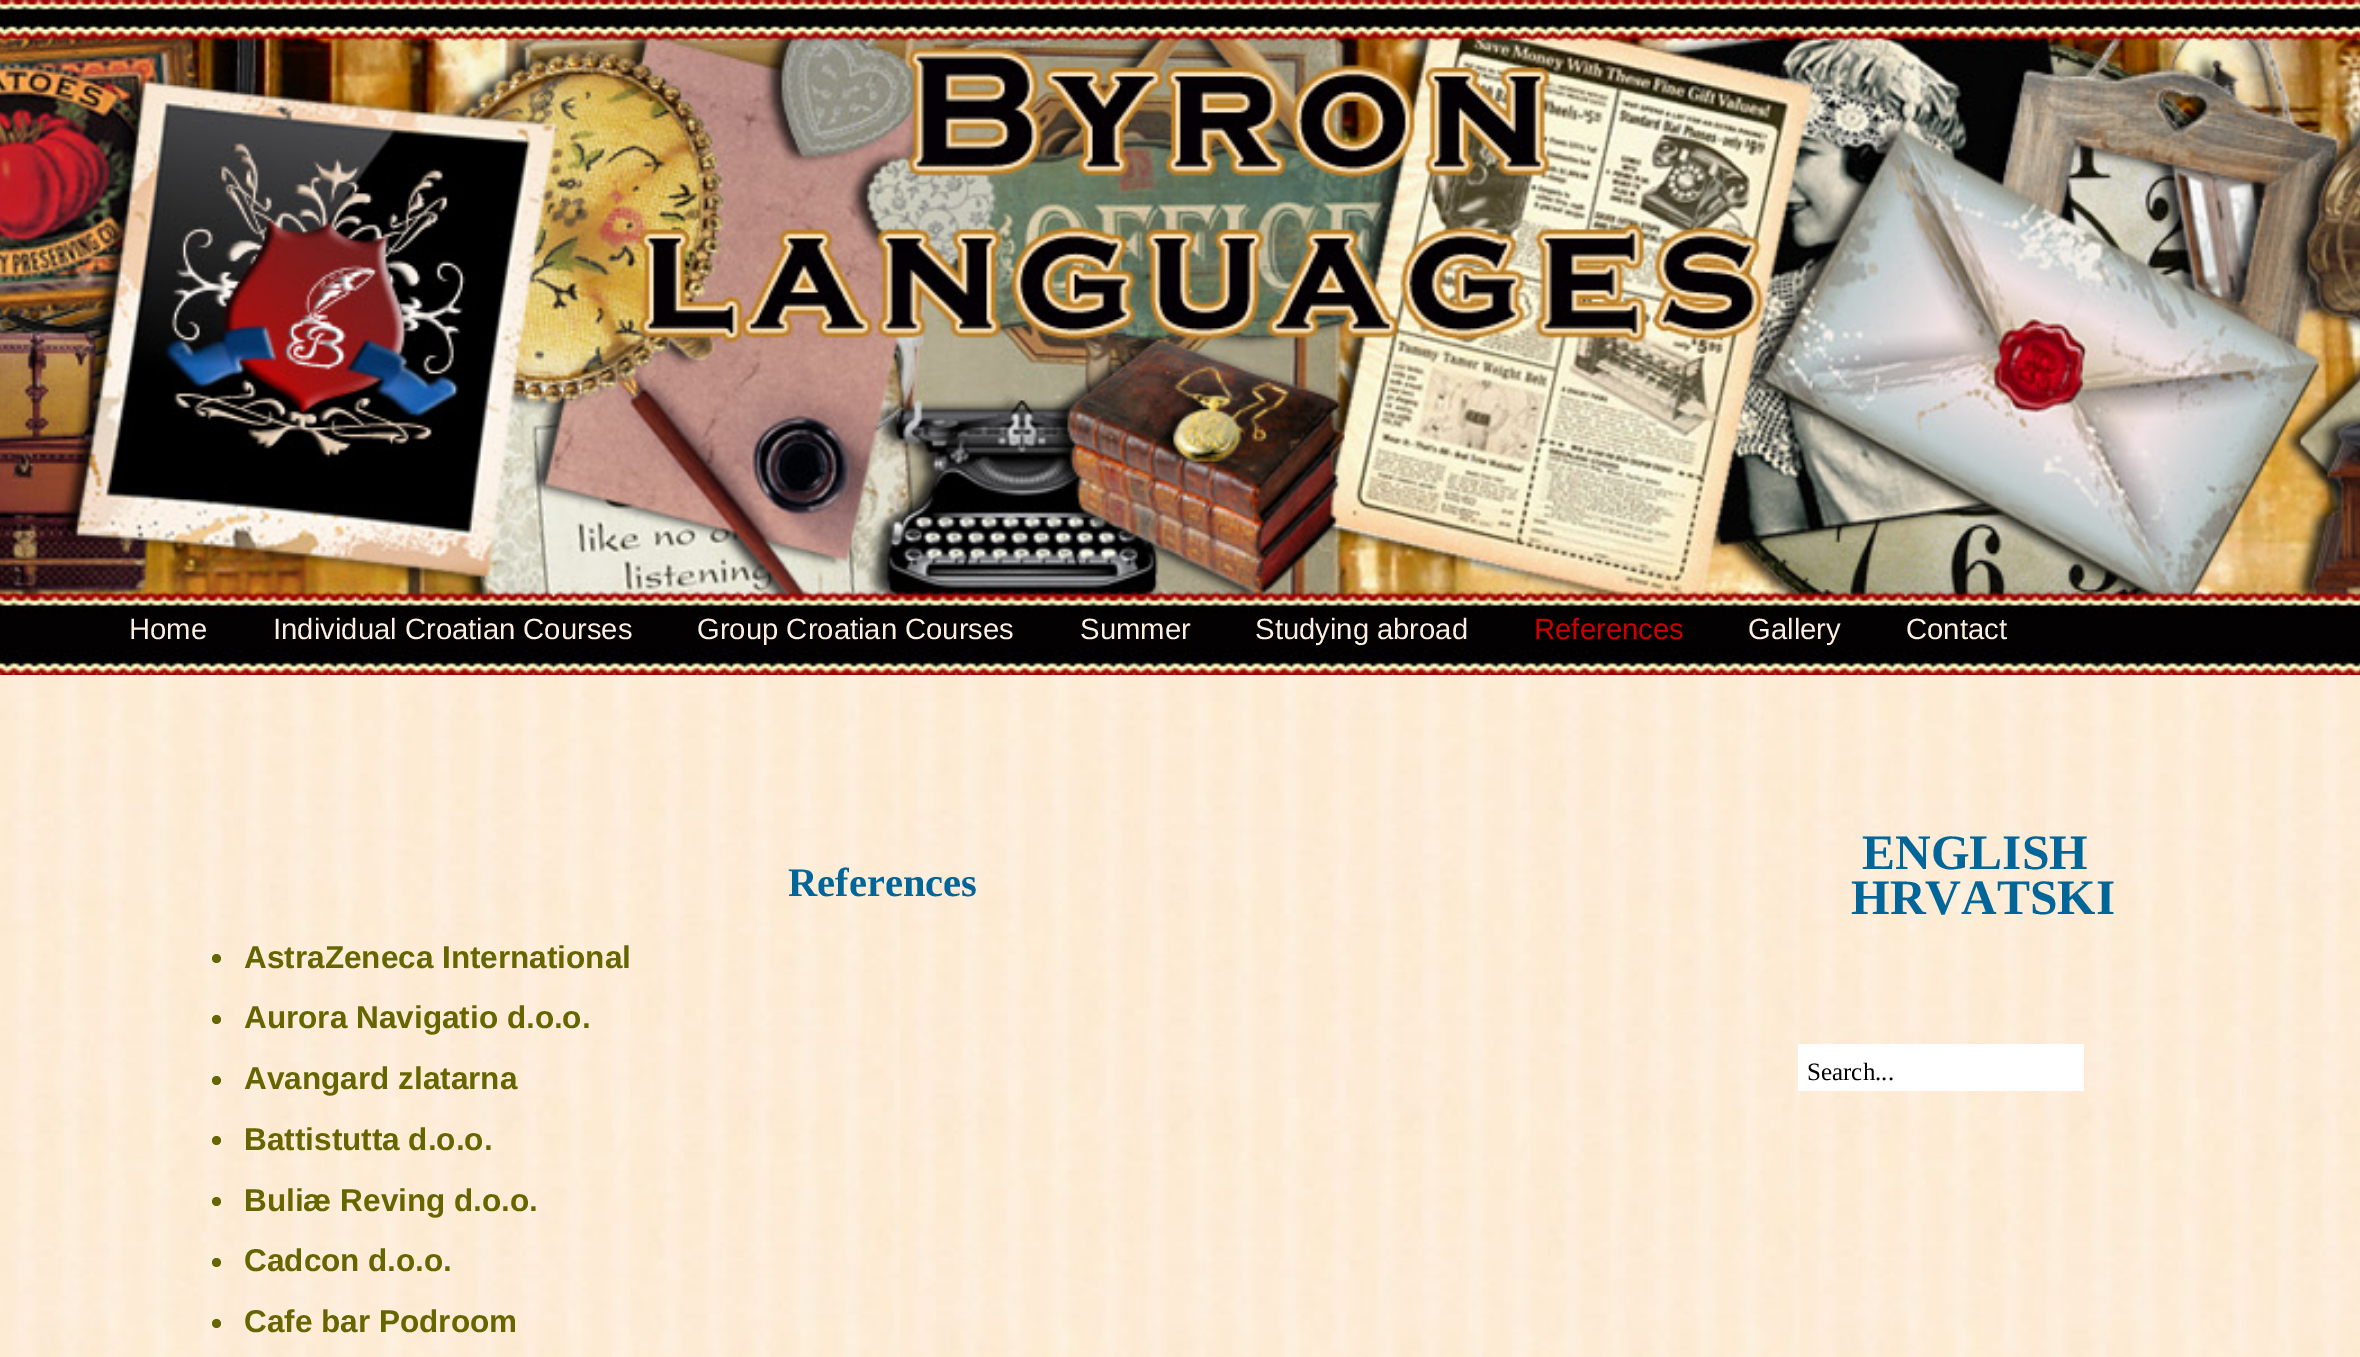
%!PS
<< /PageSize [2360 1357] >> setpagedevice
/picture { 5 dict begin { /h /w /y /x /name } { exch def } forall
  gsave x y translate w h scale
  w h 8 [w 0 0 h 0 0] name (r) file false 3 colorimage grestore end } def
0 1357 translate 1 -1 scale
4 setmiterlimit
1 setgray
0 0 2360 1357 rectfill
(img1.rgb) 0 675 2360 682 picture
(img2.rgb) 0 0 2360 675 picture
/LiberationSans-Regular [29.25 0 0 -29.25 0 0] selectfont
0.992 0.937 0.882 setrgbcolor
129 639 moveto (Home) show
273 639 moveto (Individual Croatian Courses) show
697 639 moveto (Group Croatian Courses) show
1080 639 moveto (Summer) show
1255 639 moveto (Studying abroad) show
0.8 0 0 setrgbcolor
1534 639 moveto (References) show
0.992 0.937 0.882 setrgbcolor
1748 639 moveto (Gallery) show
1906 639 moveto (Contact) show
/LiberationSerif-Bold [40.5 0 0 -40.5 0 0] selectfont
0 0.4 0.6 setrgbcolor
788 896 moveto (References) show
0.4 0.4 0 setrgbcolor
newpath 216.5 958.5 4.5 0 360 arc closepath fill
/LiberationSans-Bold [31.5 0 0 -31.5 0 0] selectfont
244 968 moveto (AstraZeneca International) show
newpath 216.5 1019.5 4.5 0 360 arc closepath fill
244 1028 moveto (Aurora Navigatio d.o.o.) show
newpath 216.5 1080.5 4.5 0 360 arc closepath fill
244 1089 moveto (Avangard zlatarna) show
newpath 216.5 1140.5 4.5 0 360 arc closepath fill
244 1150 moveto (Battistutta d.o.o.) show
newpath 216.5 1201.5 4.5 0 360 arc closepath fill
244 1211 moveto (Buliæ Reving d.o.o.) show
newpath 216.5 1262.5 4.5 0 360 arc closepath fill
244 1271 moveto (Cadcon d.o.o.) show
newpath 216.5 1323.5 4.5 0 360 arc closepath fill
244 1332 moveto (Cafe bar Podroom) show
/LiberationSerif-Bold [49.5 0 0 -49.5 0 0] selectfont
0 0.4 0.6 setrgbcolor
1862 869 moveto (ENGLISH) show
1851 914 moveto (HRVATSKI) show
1 setgray
1798 1044 286 47 rectfill
/LiberationSerif-Regular [25 0 0 -25 0 0] selectfont
0 setgray
1807 1080 moveto (Search...) show
showpage
